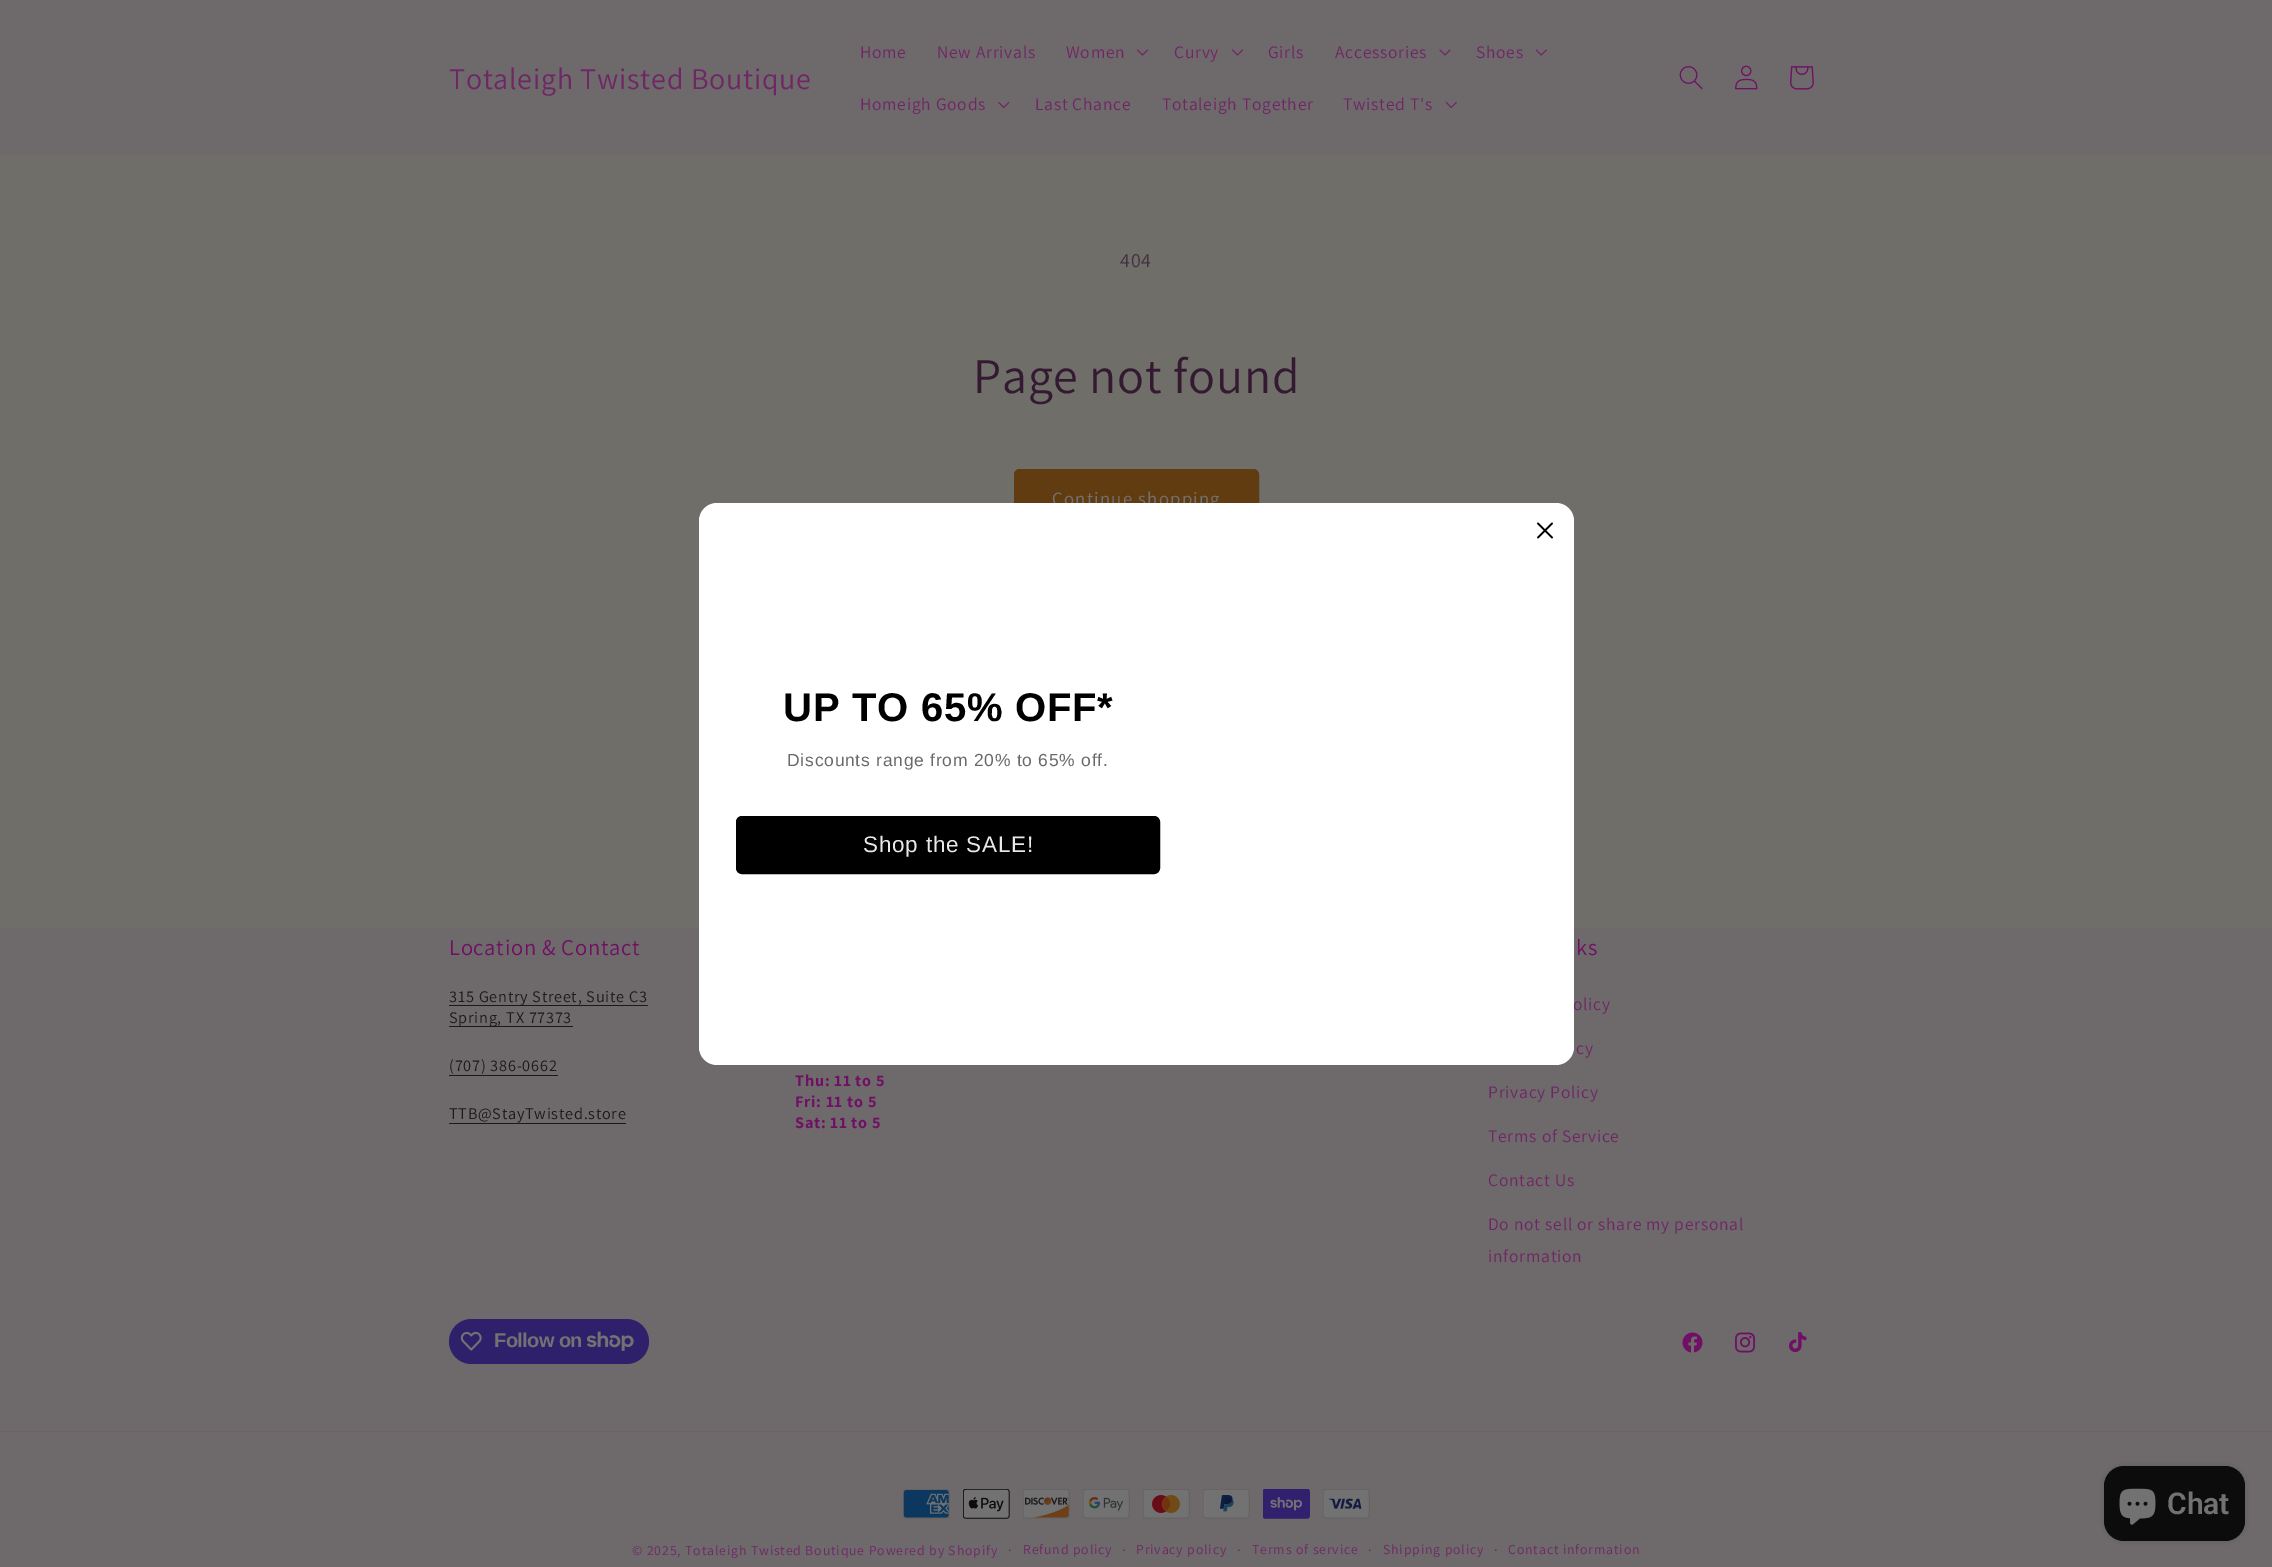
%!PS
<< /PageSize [2272 1567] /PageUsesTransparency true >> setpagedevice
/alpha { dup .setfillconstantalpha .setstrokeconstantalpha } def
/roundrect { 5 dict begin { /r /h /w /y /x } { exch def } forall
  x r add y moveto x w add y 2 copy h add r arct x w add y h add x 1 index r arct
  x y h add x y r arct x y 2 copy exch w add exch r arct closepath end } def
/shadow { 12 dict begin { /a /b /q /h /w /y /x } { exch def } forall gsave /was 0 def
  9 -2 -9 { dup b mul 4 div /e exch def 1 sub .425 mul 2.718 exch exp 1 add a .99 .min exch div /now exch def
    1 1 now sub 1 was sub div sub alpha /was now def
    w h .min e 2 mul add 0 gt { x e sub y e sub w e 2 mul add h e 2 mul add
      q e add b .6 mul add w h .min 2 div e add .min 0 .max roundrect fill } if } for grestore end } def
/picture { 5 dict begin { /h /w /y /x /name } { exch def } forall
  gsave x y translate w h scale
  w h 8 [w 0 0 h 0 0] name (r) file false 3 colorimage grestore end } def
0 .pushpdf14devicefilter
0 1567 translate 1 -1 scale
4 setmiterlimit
0.435 0.431 0.412 setrgbcolor
0 0 2272 1567 rectfill
0.431 0.412 0.416 setrgbcolor
0 0 2272 155 rectfill
/Assistant-Regular [30 0 0 -30 0 0] selectfont
0.435 0.149 0.4 setrgbcolor
449 89 moveto 0.75 0 (Totaleigh Twisted Boutique) ashow
/Assistant-Regular [17.5 0 0 -17.5 0 0] selectfont
860 58 moveto 0.75 0 (Home) ashow
937 58 moveto 0.75 0 (New Arrivals) ashow
1066 58 moveto 0.75 0 (Women) ashow
(img1.rgb) 1137 49 11 7 picture
1174 58 moveto 0.75 0 (Curvy) ashow
(img1.rgb) 1232 49 11 7 picture
1268 58 moveto 0.75 0 (Girls) ashow
1335 58 moveto 0.75 0 (Accessories) ashow
(img2.rgb) 1439 49 12 7 picture
1476 58 moveto 0.75 0 (Shoes) ashow
(img3.rgb) 1535 49 12 7 picture
860 110 moveto 0.75 0 (Homeigh Goods) ashow
(img4.rgb) 998 101 12 8 picture
1035 110 moveto 0.75 0 (Last Chance) ashow
1162 110 moveto 0.75 0 (Totaleigh Together) ashow
1343 110 moveto 0.75 0 (Twisted T's) ashow
(img5.rgb) 1445 101 12 8 picture
(img6.rgb) 1679 66 24 24 picture
(img7.rgb) 1735 65 23 25 picture
(img8.rgb) 1790 66 24 24 picture
/Assistant-Regular [20 0 0 -20 0 0] selectfont
0.259 0.184 0.247 setrgbcolor
1120 267 moveto 0.75 0 (404) ashow
/Assistant-Regular [50 0 0 -50 0 0] selectfont
0.204 0.102 0.192 setrgbcolor
973 393 moveto 0.75 0 (Page not found) ashow
0.38 0.235 0.067 setrgbcolor
1014 469 245 59 6 roundrect fill
1014.5 469.5 244 58 5.5 roundrect stroke
/Assistant-Regular [18.75 0 0 -18.75 0 0] selectfont
0.447 setgray
1052 505 moveto 1.25 0 (Continue shopping) ashow
0.431 0.412 0.416 setrgbcolor
0 928 2272 639 rectfill
/Assistant-Regular [17.5 0 0 -17.5 0 0] selectfont
0.435 0.149 0.4 setrgbcolor
1573 1010 moveto 0.75 0 (olicy) ashow
1 setgray
699 503 875 562 18 roundrect fill
(img9.rgb) 1537 522 16 17 picture
/LiberationSans-Bold [40 0 0 -40 0 0] selectfont
0 setgray
783 721 moveto 0.75 0 (UP TO 65% OFF*) ashow
/LiberationSans-Regular [17.5 0 0 -17.5 0 0] selectfont
0.412 setgray
787 766 moveto 0.75 0 (Discounts range from 20% to 65% off.) ashow
0 setgray
737.5 817.5 421 55 4.5 roundrect gsave fill grestore
3 setlinewidth
stroke
/LiberationSans-Regular [22.5 0 0 -22.5 0 0] selectfont
0.91 setgray
863 852 moveto 0.75 0 (Shop the SALE!) ashow
/Assistant-Regular [22.5 0 0 -22.5 0 0] selectfont
0.439 0.059 0.396 setrgbcolor
449 955 moveto 0.75 0 (Location & Contact) ashow
0.106 0.102 0.102 setrgbcolor
449 1005 199 1 rectfill
/Assistant-Regular [16.25 0 0 -16.25 0 0] selectfont
0.102 setgray
449 1002 moveto 0.75 0 (315 Gentry Street, Suite C3) ashow
0.106 0.102 0.102 setrgbcolor
449 1026 124 1 rectfill
0.102 setgray
449 1023 moveto 0.75 0 (Spring, TX 77373) ashow
449 1071 moveto 0.75 0 (\(707\) 386-0662) ashow
0.106 0.102 0.102 setrgbcolor
449 1075 109 1 rectfill
0.102 setgray
449 1119 moveto 0.75 0 (TTB@StayTwisted.store) ashow
0.106 0.102 0.102 setrgbcolor
449 1123 177 1 rectfill
/Assistant-Bold [16.25 0 0 -16.25 0 0] selectfont
0.439 0.059 0.396 setrgbcolor
795 1086 moveto 0.75 0 (Thu: 11 to 5) ashow
795 1107 moveto 0.75 0 (Fri: 11 to 5) ashow
795 1128 moveto 0.75 0 (Sat: 11 to 5) ashow
/Assistant-Regular [22.5 0 0 -22.5 0 0] selectfont
1576 955 moveto 0.75 0 (ks) ashow
/Assistant-Regular [17.5 0 0 -17.5 0 0] selectfont
0.435 0.149 0.4 setrgbcolor
1576 1054 moveto 0.75 0 (cy) ashow
1488 1098 moveto 0.75 0 (Privacy Policy) ashow
1488 1142 moveto 0.75 0 (Terms of Service) ashow
1488 1186 moveto 0.75 0 (Contact Us) ashow
1488 1230 moveto 0.75 0 (Do not sell or share my personal) ashow
1488 1262 moveto 0.75 0 (information) ashow
0.18 0.125 0.416 setrgbcolor
449 1319 200 45 22.5 roundrect fill
(img10.rgb) 460 1331 22 20 picture
/LiberationSans-Bold [20 0 0 -20 0 0] selectfont
0.447 setgray
494 1347 moveto -0.6 0 (Follow on) ashow
(img11.rgb) 586 1331 48 20 picture
(img12.rgb) 1682 1332 21 21 picture
(img13.rgb) 1735 1332 20 21 picture
(img14.rgb) 1788 1332 19 21 picture
0.431 0.384 0.416 setrgbcolor
0 1431 2272 1 rectfill
(img15.rgb) 903 1489 47 30 picture
(img16.rgb) 963 1489 47 30 picture
(img17.rgb) 1023 1489 47 30 picture
(img18.rgb) 1083 1489 47 30 picture
(img19.rgb) 1143 1489 47 30 picture
(img20.rgb) 1203 1489 47 30 picture
(img21.rgb) 1263 1489 47 30 picture
(img22.rgb) 1323 1489 47 30 picture
/Assistant-Regular [13.75 0 0 -13.75 0 0] selectfont
0.435 0.149 0.4 setrgbcolor
632 1555 moveto 0.88 0 (© 2025, Totaleigh Twisted Boutique Powered by Shopify) ashow
/Assistant-Regular [15 0 0 -15 0 0] selectfont
1008 1555 moveto 0.88 0 (·) ashow
/Assistant-Regular [13.75 0 0 -13.75 0 0] selectfont
1023 1554 moveto 0.88 0 (Refund policy) ashow
/Assistant-Regular [15 0 0 -15 0 0] selectfont
1122 1555 moveto 0.88 0 (·) ashow
/Assistant-Regular [13.75 0 0 -13.75 0 0] selectfont
1136 1554 moveto 0.88 0 (Privacy policy) ashow
/Assistant-Regular [15 0 0 -15 0 0] selectfont
1237 1555 moveto 0.88 0 (·) ashow
/Assistant-Regular [13.75 0 0 -13.75 0 0] selectfont
1252 1554 moveto 0.88 0 (Terms of service) ashow
/Assistant-Regular [15 0 0 -15 0 0] selectfont
1368 1555 moveto 0.88 0 (·) ashow
/Assistant-Regular [13.75 0 0 -13.75 0 0] selectfont
1383 1554 moveto 0.88 0 (Shipping policy) ashow
/Assistant-Regular [15 0 0 -15 0 0] selectfont
1494 1555 moveto 0.88 0 (·) ashow
/Assistant-Regular [13.75 0 0 -13.75 0 0] selectfont
1508 1554 moveto 0.88 0 (Contact information) ashow
0.047 setgray
2104 1466 141 75 20 3 0.15 shadow
2104 1466 141 75 20 roundrect fill
(img23.rgb) 2119 1488 37 37 picture
/Roboto-SemiBold [30 0 0 -30 0 0] selectfont
0.447 setgray
2167 1514 moveto (Chat) show
.poppdf14devicefilter showpage
